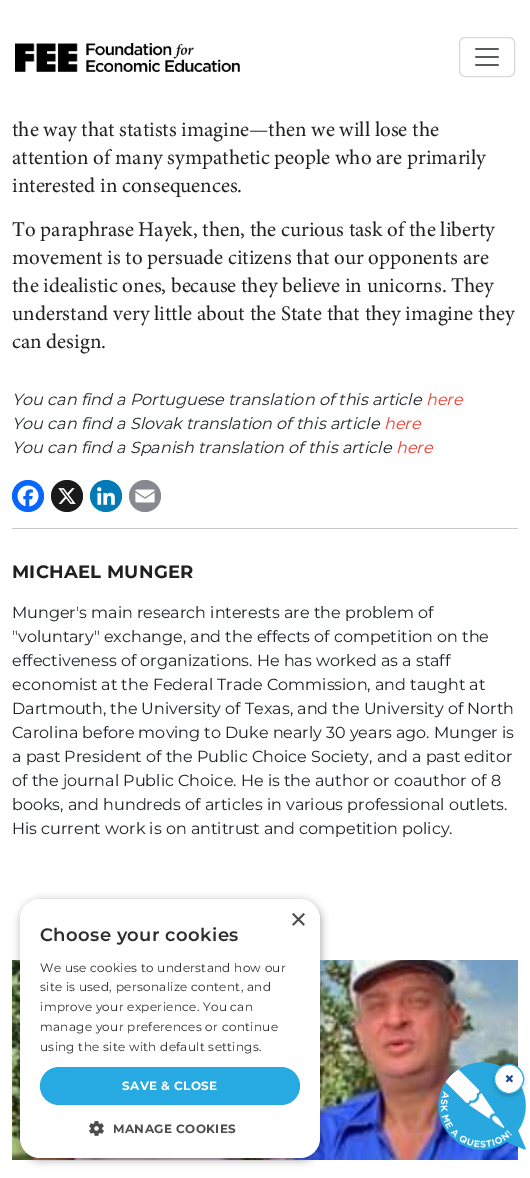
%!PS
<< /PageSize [530 1178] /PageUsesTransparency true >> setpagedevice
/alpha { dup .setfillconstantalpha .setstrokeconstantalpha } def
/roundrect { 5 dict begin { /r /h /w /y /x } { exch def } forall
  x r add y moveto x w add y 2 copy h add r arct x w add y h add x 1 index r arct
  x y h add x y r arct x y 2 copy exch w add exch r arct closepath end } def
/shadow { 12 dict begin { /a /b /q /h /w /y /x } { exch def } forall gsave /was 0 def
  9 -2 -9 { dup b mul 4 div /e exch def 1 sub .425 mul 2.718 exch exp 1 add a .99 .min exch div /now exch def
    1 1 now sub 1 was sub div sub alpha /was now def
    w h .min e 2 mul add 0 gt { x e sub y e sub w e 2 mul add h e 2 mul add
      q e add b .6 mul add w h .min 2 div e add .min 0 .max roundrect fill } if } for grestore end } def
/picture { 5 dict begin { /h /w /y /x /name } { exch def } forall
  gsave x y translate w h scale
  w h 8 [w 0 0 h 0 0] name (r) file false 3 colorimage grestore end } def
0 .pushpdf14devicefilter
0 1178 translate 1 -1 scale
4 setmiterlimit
1 setgray
0 0 530 1178 rectfill
(img1.rgb) 15 43 225 29 picture
0.851 setgray
459.5 37.5 55 39 5.5 roundrect stroke
(img2.rgb) 475 48 24 18 picture
/Minion-Regular [21 0 0 -21 0 0] selectfont
0.129 0.122 0.125 setrgbcolor
12 136 moveto (the way that statists imagine—then we will lose the) show
12 164 moveto (attention of many sympathetic people who are primarily) show
12 192 moveto (interested in consequences.) show
12 236 moveto (To paraphrase Hayek, then, the curious task of the liberty) show
12 264 moveto (movement is to persuade citizens that our opponents are) show
12 292 moveto (the idealistic ones, because they believe in unicorns. They) show
12 320 moveto (understand very little about the State that they imagine they) show
12 348 moveto (can design.) show
/Montserrat-Italic [16 0 0 -16 0 0] selectfont
0.129 0.145 0.161 setrgbcolor
12 405 moveto (You can find a Portuguese translation of this article) show
0.922 0.251 0.196 setrgbcolor
426 405 moveto (here) show
0.129 0.145 0.161 setrgbcolor
12 429 moveto (You can find a Slovak translation of this article) show
0.922 0.251 0.196 setrgbcolor
384 429 moveto (here) show
0.129 0.145 0.161 setrgbcolor
12 453 moveto (You can find a Spanish translation of this article) show
0.922 0.251 0.196 setrgbcolor
396 453 moveto (here) show
0.031 0.4 1 setrgbcolor
newpath 28 496 16 0 360 arc closepath fill
(img3.rgb) 17 485 22 22 picture
0.102 setgray
newpath 67 496 16 0 360 arc closepath fill
(img4.rgb) 58 488 18 16 picture
0 0.482 0.71 setrgbcolor
newpath 106 496 16 0 360 arc closepath fill
(img5.rgb) 97 487 18 18 picture
0.533 0.537 0.565 setrgbcolor
newpath 145 496 16 0 360 arc closepath fill
(img6.rgb) 135 489 20 14 picture
0.784 0.788 0.792 setrgbcolor
12 528 506 1 rectfill
/Montserrat-Bold [18 0 0 -18 0 0] selectfont
0.129 0.122 0.125 setrgbcolor
12 578 moveto 0.3 0 (MICHAEL MUNGER) ashow
/Montserrat-Regular [16 0 0 -16 0 0] selectfont
0.129 0.145 0.161 setrgbcolor
12 618 moveto (Munger's main research interests are the problem of) show
12 642 moveto ("voluntary" exchange, and the effects of competition on the) show
12 666 moveto (effectiveness of organizations. He has worked as a staff) show
12 690 moveto (economist at the Federal Trade Commission, and taught at) show
12 714 moveto (Dartmouth, the University of Texas, and the University of North) show
12 738 moveto (Carolina before moving to Duke nearly 30 years ago. Munger is) show
12 762 moveto (a past President of the Public Choice Society, and a past editor) show
12 786 moveto (of the journal Public Choice. He is the author or coauthor of 8) show
12 810 moveto (books, and hundreds of articles in various professional outlets.) show
12 834 moveto (His current work is on antitrust and competition policy.) show
(img7.rgb) 12 960 506 200 picture
0 setgray
21 901 300 259 20 4 0.35 shadow
1 setgray
20 899 300 259 20 roundrect fill
/LiberationSans-Regular [29 0 0 -29 0 0] selectfont
0.302 setgray
290 929 moveto (×) show
/Montserrat-SemiBold [18 0 0 -18 0 0] selectfont
0.176 setgray
40 941 moveto 0.4 0 (Choose your cookies) ashow
/Montserrat-Regular [12 0 0 -12 0 0] selectfont
40 972 moveto 0.3 0 (We use cookies to understand how our) ashow
40 991 moveto 0.3 0 (site is used, personalize content, and) ashow
40 1011 moveto 0.3 0 (improve your experience. You can) ashow
40 1031 moveto 0.3 0 (manage your preferences or continue) ashow
40 1051 moveto 0.3 0 (using the site with default settings.) ashow
0.153 0.667 0.882 setrgbcolor
40 1067 260 38 19 roundrect fill
/Montserrat-Bold [12 0 0 -12 0 0] selectfont
1 setgray
122 1090 moveto 0.4 0 (SAVE & CLOSE) ashow
(img8.rgb) 89 1121 15 15 picture
0.302 setgray
113 1133 moveto 0.4 0 (MANAGE COOKIES) ashow
(img9.rgb) 438 1062 89 88 picture
0 setgray
494 1066 30 30 15 2 0.2 shadow
1 setgray
newpath 509 1079 14.5 0 360 arc closepath gsave fill grestore
0.153 0.667 0.882 setrgbcolor
stroke
/Montserrat-Bold [18 0 0 -18 0 0] selectfont
0.122 0.263 0.565 setrgbcolor
504 1085 moveto (×) show
.poppdf14devicefilter showpage
